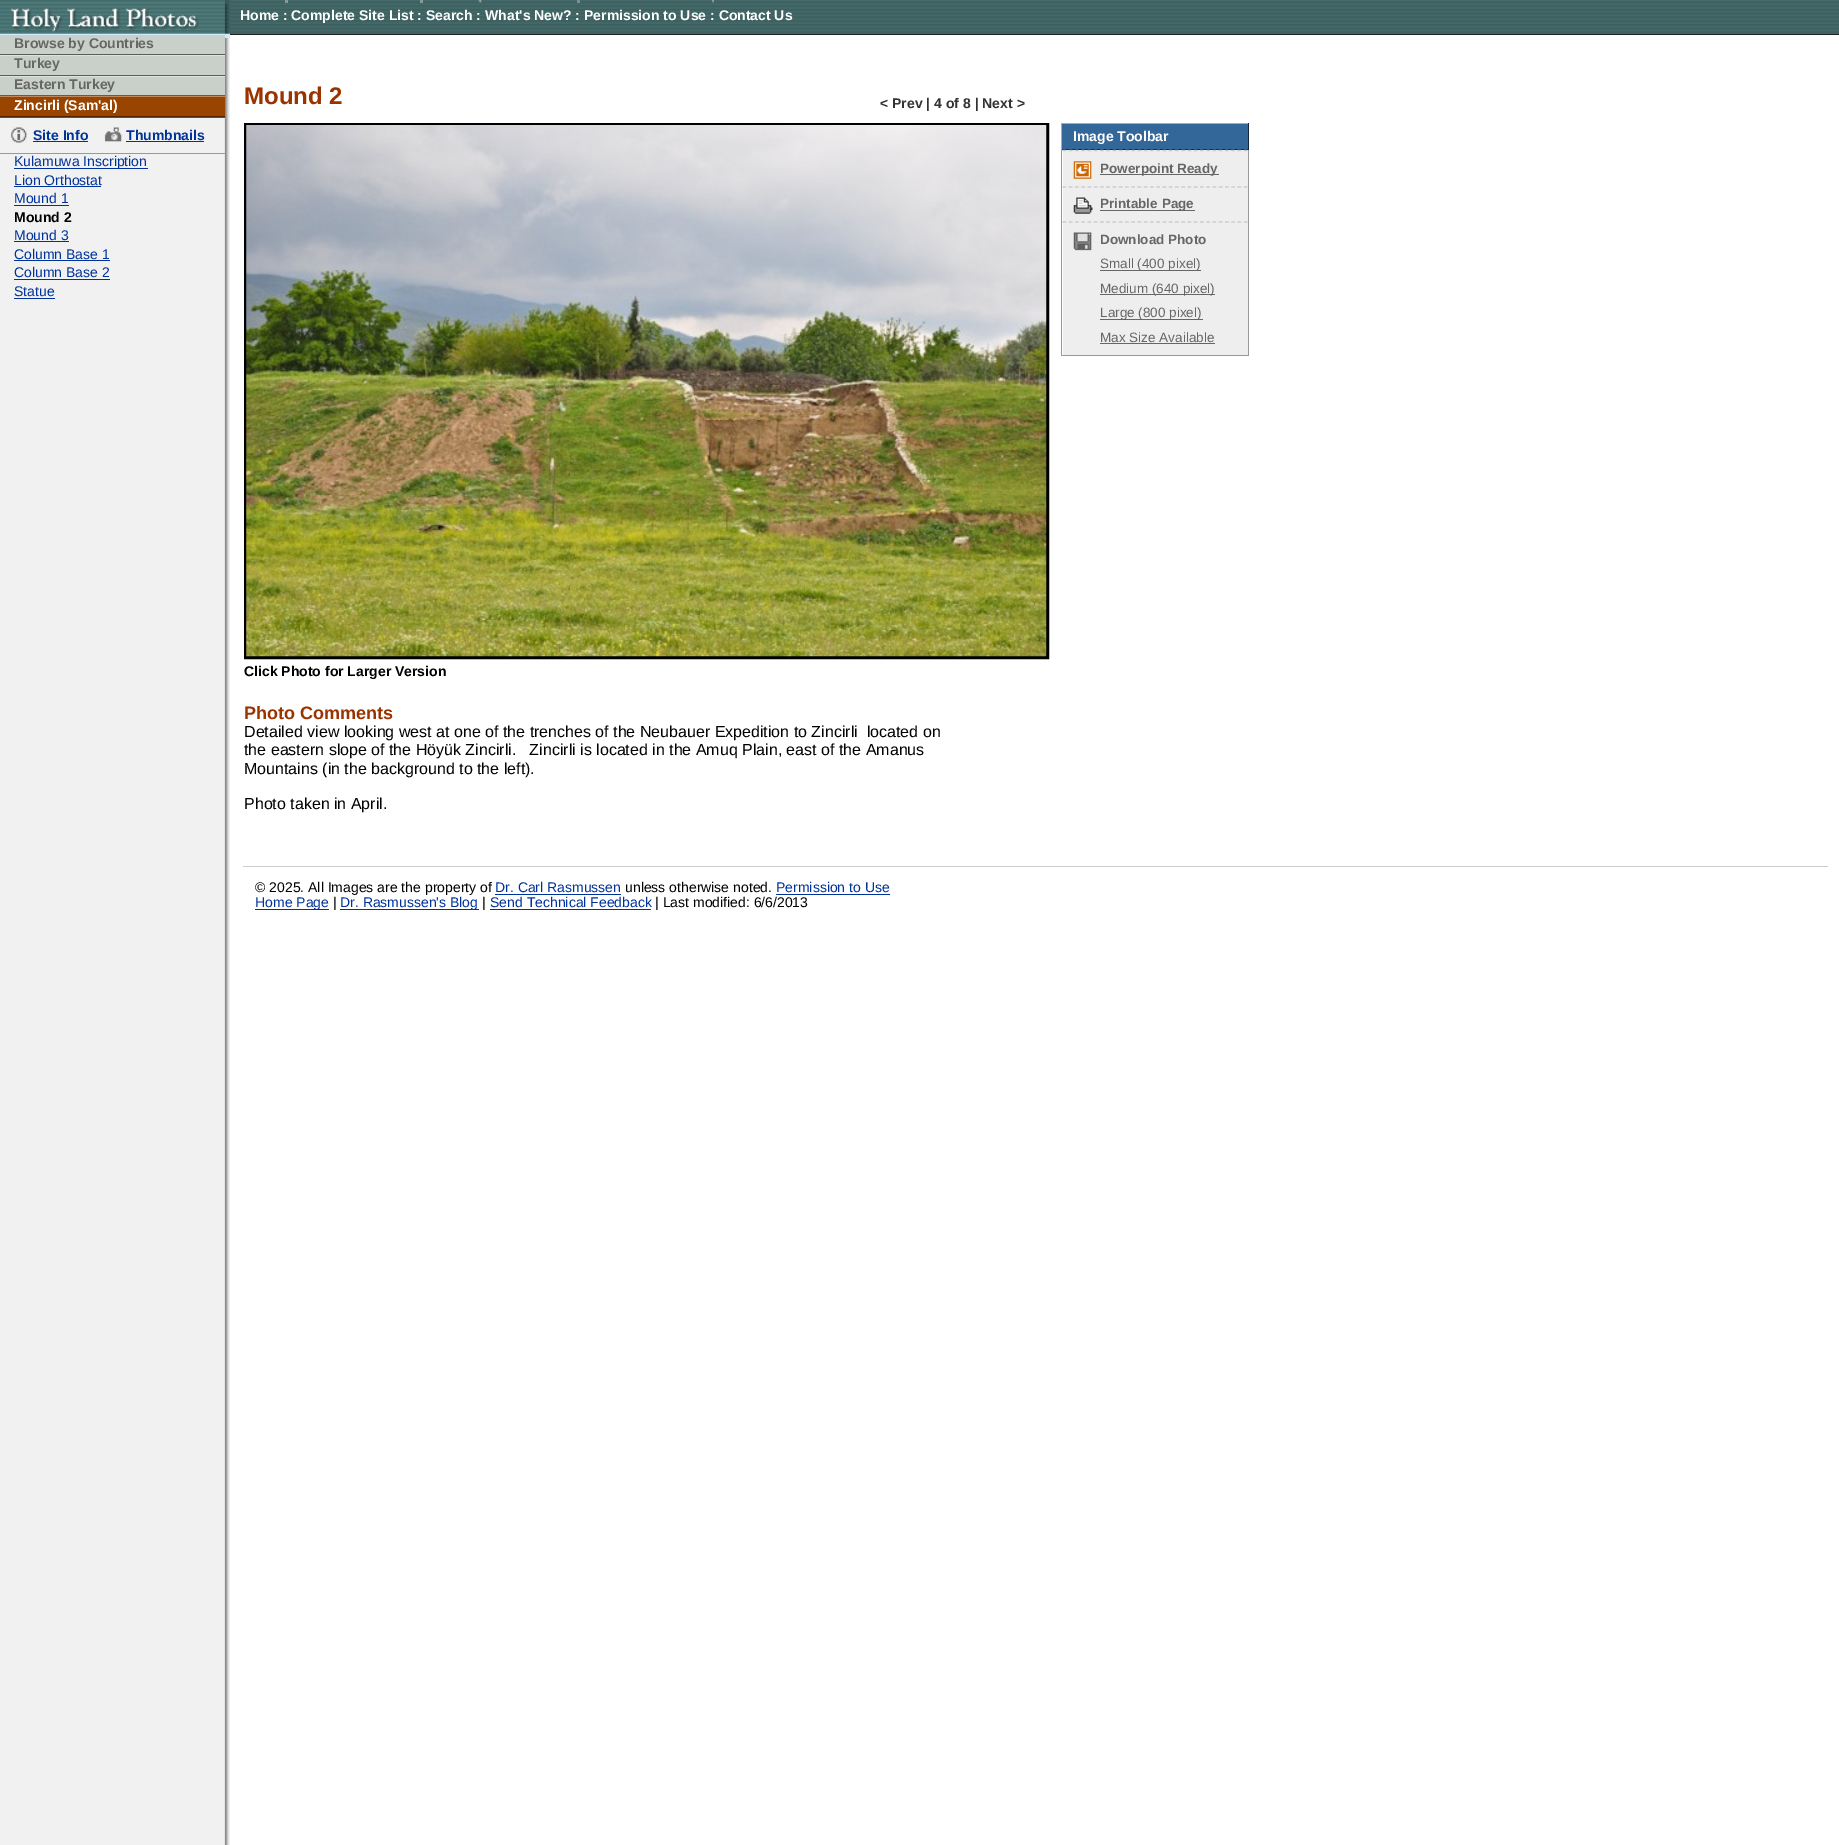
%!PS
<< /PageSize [1839 1845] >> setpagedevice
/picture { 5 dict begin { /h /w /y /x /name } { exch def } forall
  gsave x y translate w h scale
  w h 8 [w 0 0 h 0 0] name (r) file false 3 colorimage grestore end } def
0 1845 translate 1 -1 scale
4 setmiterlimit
1 setgray
0 0 1839 1845 rectfill
(img1.rgb) 0 38 230 1807 picture
(img2.rgb) 230 0 1609 34 picture
0.133 setgray
230 34 1609 1 rectfill
0.8 0.925 1 setrgbcolor
0 33 230 5 rectfill
(img3.rgb) 0 0 230 34 picture
0.522 0.608 0.608 setrgbcolor
285 0 3 3 rectfill
420 0 3 3 rectfill
(img4.rgb) 478 0 4 3 picture
0.478 0.573 0.573 setrgbcolor
577 0 3 3 rectfill
(img5.rgb) 712 0 2 3 picture
/LiberationSans-Bold [14 0 0 -14 0 0] selectfont
1 setgray
240 20 moveto (Home : Complete Site List : Search : What's New? : Permission to Use : Contact Us) show
0.788 0.816 0.788 setrgbcolor
0 35 225 19 rectfill
0.361 setgray
0 54 225 1 rectfill
0.4 setgray
14 48 moveto (Browse by Countries) show
0.788 0.816 0.788 setrgbcolor
0 56 225 19 rectfill
0.871 0.886 0.871 setrgbcolor
0 55 225 1 rectfill
0.361 setgray
0 75 225 1 rectfill
0.4 setgray
14 68 moveto (Turkey) show
0.788 0.816 0.788 setrgbcolor
0 77 225 18 rectfill
0.871 0.886 0.871 setrgbcolor
0 76 225 1 rectfill
0.361 setgray
0 95 225 1 rectfill
0.4 setgray
14 89 moveto (Eastern Turkey) show
0.6 0.271 0 setrgbcolor
0 97 225 21 rectfill
0.745 0.533 0.361 setrgbcolor
0 96 225 1 rectfill
0.314 0.141 0 setrgbcolor
0 116 225 1 rectfill
1 setgray
14 110 moveto (Zincirli \(Sam'al\)) show
0.6 setgray
0 153 225 1 rectfill
(img6.rgb) 11 127 16 16 picture
0 0.2 0.6 setrgbcolor
33 140 moveto (Site Info) show
33 141 55 1 rectfill
(img7.rgb) 104 127 18 15 picture
126 140 moveto (Thumbnails) show
126 141 78 1 rectfill
14 168 134 1 rectfill
/LiberationSans-Regular [14 0 0 -14 0 0] selectfont
14 166 moveto (Kulamuwa Inscription) show
14 185 moveto (Lion Orthostat) show
14 186 87 1 rectfill
14 203 moveto (Mound 1) show
14 205 55 1 rectfill
/LiberationSans-Bold [14 0 0 -14 0 0] selectfont
0 setgray
14 222 moveto (Mound 2) show
/LiberationSans-Regular [14 0 0 -14 0 0] selectfont
0 0.2 0.6 setrgbcolor
14 240 moveto (Mound 3) show
14 241 55 1 rectfill
14 259 moveto (Column Base 1) show
14 260 96 1 rectfill
14 277 moveto (Column Base 2) show
14 279 96 1 rectfill
14 296 moveto (Statue) show
14 298 41 1 rectfill
/LiberationSans-Bold [24 0 0 -24 0 0] selectfont
0.6 0.2 0 setrgbcolor
244 104 moveto (Mound 2) show
/LiberationSans-Bold [14 0 0 -14 0 0] selectfont
0.2 setgray
880 108 moveto (< Prev | 4 of 8 | Next >) show
0.2 0.4 0.6 setrgbcolor
1062 124 186 25 rectfill
0.588 0.69 0.796 setrgbcolor
1061 123 188 1 rectfill
0.075 0.145 0.22 setrgbcolor
1248 123 1 27 rectfill
1061 149 188 1 rectfill
0.588 0.69 0.796 setrgbcolor
1061 123 1 27 rectfill
1 setgray
1073 141 moveto (Image Toolbar) show
0.933 setgray
1063 150 185 205 rectfill
0.6 setgray
1248 150 1 206 rectfill
1061 355 188 1 rectfill
1061 150 1 206 rectfill
(img8.rgb) 1073 161 19 18 picture
0.8 setgray
1.2 setlinewidth
[3.75 2.5] 0 setdash
newpath 1062.5 150.5 moveto 1247.5 150.5 lineto stroke
0.4 setgray
1100 174 119 1 rectfill
/LiberationSans-Bold [13.5 0 0 -13.5 0 0] selectfont
1100 173 moveto (Powerpoint Ready) show
(img9.rgb) 1073 197 20 17 picture
0.8 setgray
newpath 1062.5 187 moveto 1247.5 187 lineto stroke
0.4 setgray
1100 210 95 1 rectfill
1100 208 moveto (Printable Page) show
(img10.rgb) 1073 232 19 19 picture
0.8 setgray
newpath 1062.5 222 moveto 1247.5 222 lineto stroke
0.4 setgray
1100 244 moveto (Download Photo) show
1100 270 101 1 rectfill
/LiberationSans-Regular [13.5 0 0 -13.5 0 0] selectfont
1100 268 moveto (Small \(400 pixel\)) show
1100 294 115 1 rectfill
1100 293 moveto (Medium \(640 pixel\)) show
1100 319 103 1 rectfill
1100 317 moveto (Large \(800 pixel\)) show
1100 342 moveto (Max Size Available) show
1100 343 115 1 rectfill
0 setgray
3 setlinewidth
[] 0 setdash
245.5 124.5 802 533 rectstroke
(img11.rgb) 246 125 801 532 picture
/LiberationSans-Bold [14 0 0 -14 0 0] selectfont
244 676 moveto (Click Photo for Larger Version) show
/LiberationSans-Bold [18 0 0 -18 0 0] selectfont
0.6 0.2 0 setrgbcolor
244 719 moveto (Photo Comments) show
/LiberationSans-Regular [16 0 0 -16 0 0] selectfont
0 setgray
244 737 moveto (Detailed view looking west at one of the trenches of the Neubauer Expedition to Zincirli  located on) show
244 755 moveto (the eastern slope of the Höyük Zincirli.   Zincirli is located in the Amuq Plain, east of the Amanus) show
244 774 moveto (Mountains \(in the background to the left\).) show
244 809 moveto (Photo taken in April.) show
0.8 setgray
243 866 1585 1 rectfill
/LiberationSans-Regular [14 0 0 -14 0 0] selectfont
0 setgray
255 892 moveto (© 2025. All Images are the property of) show
0 0.2 0.6 setrgbcolor
495 892 moveto (Dr. Carl Rasmussen) show
495 894 126 1 rectfill
0 setgray
625 892 moveto (unless otherwise noted.) show
0 0.2 0.6 setrgbcolor
776 892 moveto (Permission to Use) show
776 894 114 1 rectfill
255 909 74 1 rectfill
255 907 moveto (Home Page) show
0 setgray
333 907 moveto (|) show
0 0.2 0.6 setrgbcolor
340 909 139 1 rectfill
340 907 moveto (Dr. Rasmussen's Blog) show
0 setgray
482 907 moveto (|) show
0 0.2 0.6 setrgbcolor
490 907 moveto (Send Technical Feedback) show
490 909 161 1 rectfill
0 setgray
655 907 moveto (| Last modified: 6/6/2013) show
showpage
